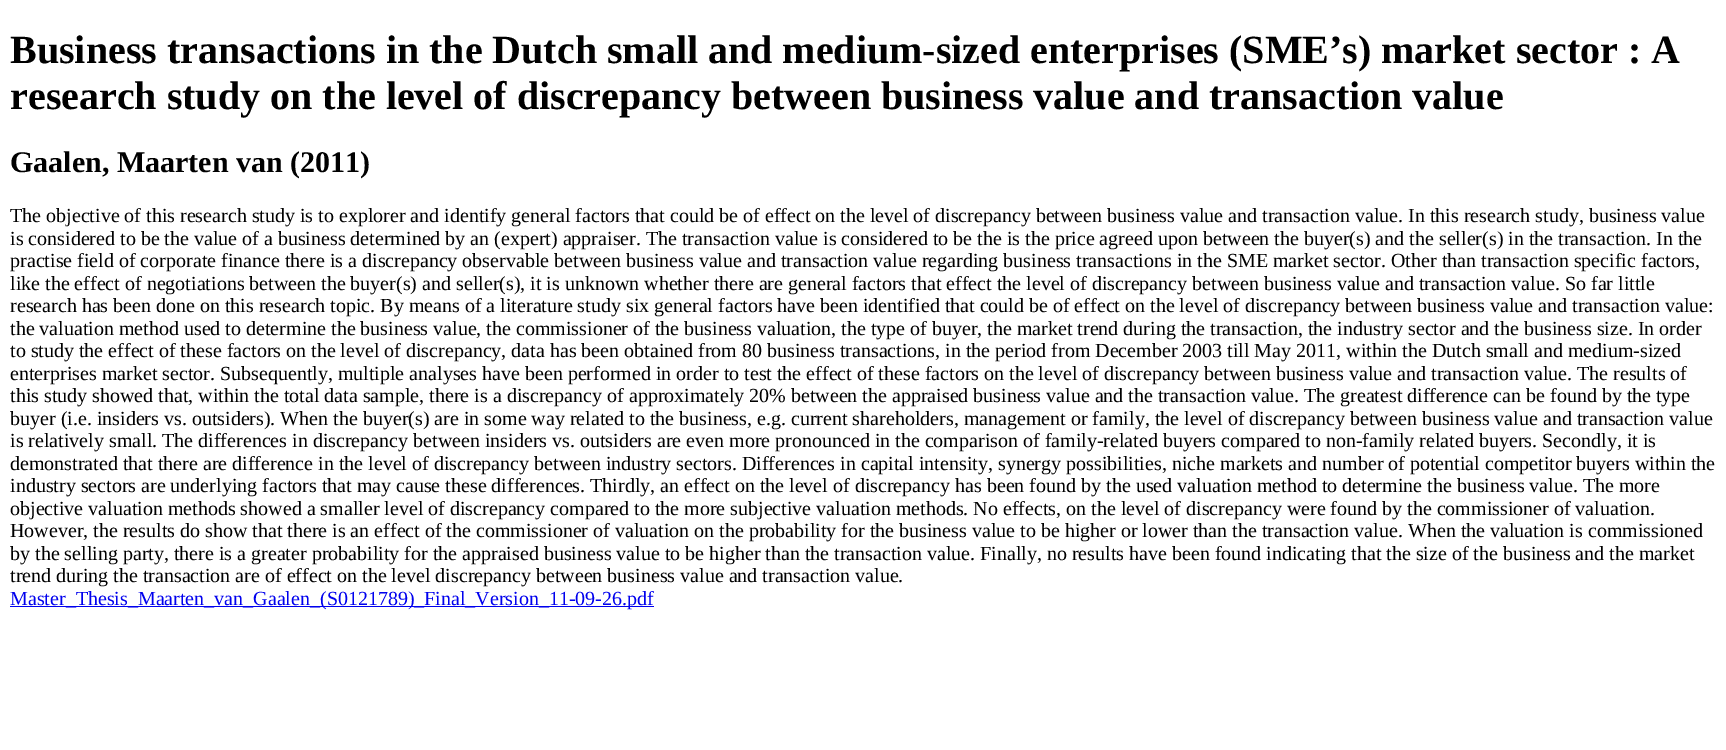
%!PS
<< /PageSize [1726 750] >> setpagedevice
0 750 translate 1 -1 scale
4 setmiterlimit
1 setgray
0 0 1726 750 rectfill
/LiberationSerif-Bold [40 0 0 -40 0 0] selectfont
0 setgray
10 63 moveto (Business transactions in the Dutch small and medium-sized enterprises \(SME’s\) market sector : A) show
10 109 moveto (research study on the level of discrepancy between business value and transaction value) show
/LiberationSerif-Bold [30 0 0 -30 0 0] selectfont
10 172 moveto (Gaalen, Maarten van \(2011\)) show
/LiberationSerif-Regular [20 0 0 -20 0 0] selectfont
10 222 moveto (The objective of this research study is to explorer and identify general factors that could be of effect on the level of discrepancy between business value and transaction value. In this research study, business value) show
10 245 moveto (is considered to be the value of a business determined by an \(expert\) appraiser. The transaction value is considered to be the is the price agreed upon between the buyer\(s\) and the seller\(s\) in the transaction. In the) show
10 267 moveto (practise field of corporate finance there is a discrepancy observable between business value and transaction value regarding business transactions in the SME market sector. Other than transaction specific factors,) show
10 290 moveto (like the effect of negotiations between the buyer\(s\) and seller\(s\), it is unknown whether there are general factors that effect the level of discrepancy between business value and transaction value. So far little) show
10 312 moveto (research has been done on this research topic. By means of a literature study six general factors have been identified that could be of effect on the level of discrepancy between business value and transaction value:) show
10 335 moveto (the valuation method used to determine the business value, the commissioner of the business valuation, the type of buyer, the market trend during the transaction, the industry sector and the business size. In order) show
10 357 moveto (to study the effect of these factors on the level of discrepancy, data has been obtained from 80 business transactions, in the period from December 2003 till May 2011, within the Dutch small and medium-sized) show
10 380 moveto (enterprises market sector. Subsequently, multiple analyses have been performed in order to test the effect of these factors on the level of discrepancy between business value and transaction value. The results of) show
10 402 moveto (this study showed that, within the total data sample, there is a discrepancy of approximately 20% between the appraised business value and the transaction value. The greatest difference can be found by the type) show
10 425 moveto (buyer \(i.e. insiders vs. outsiders\). When the buyer\(s\) are in some way related to the business, e.g. current shareholders, management or family, the level of discrepancy between business value and transaction value) show
10 447 moveto (is relatively small. The differences in discrepancy between insiders vs. outsiders are even more pronounced in the comparison of family-related buyers compared to non-family related buyers. Secondly, it is) show
10 470 moveto (demonstrated that there are difference in the level of discrepancy between industry sectors. Differences in capital intensity, synergy possibilities, niche markets and number of potential competitor buyers within the) show
10 492 moveto (industry sectors are underlying factors that may cause these differences. Thirdly, an effect on the level of discrepancy has been found by the used valuation method to determine the business value. The more) show
10 515 moveto (objective valuation methods showed a smaller level of discrepancy compared to the more subjective valuation methods. No effects, on the level of discrepancy were found by the commissioner of valuation.) show
10 537 moveto (However, the results do show that there is an effect of the commissioner of valuation on the probability for the business value to be higher or lower than the transaction value. When the valuation is commissioned) show
10 560 moveto (by the selling party, there is a greater probability for the appraised business value to be higher than the transaction value. Finally, no results have been found indicating that the size of the business and the market) show
10 582 moveto (trend during the transaction are of effect on the level discrepancy between business value and transaction value.) show
0 0 0.933 setrgbcolor
10 606 644 1 rectfill
10 605 moveto (Master_Thesis_Maarten_van_Gaalen_\(S0121789\)_Final_Version_11-09-26.pdf) show
showpage
